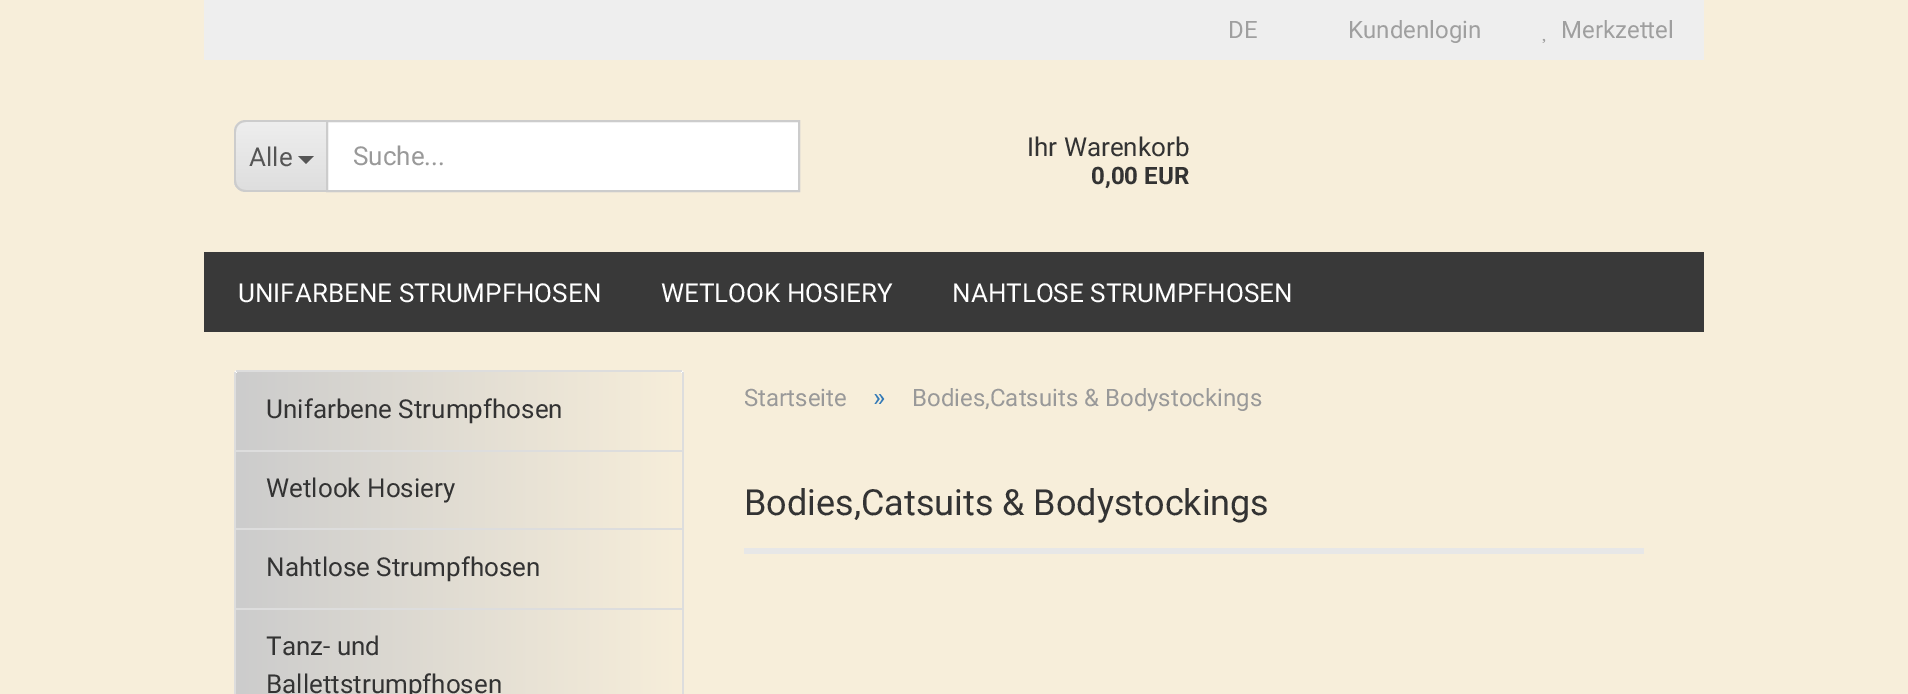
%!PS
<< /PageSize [1908 694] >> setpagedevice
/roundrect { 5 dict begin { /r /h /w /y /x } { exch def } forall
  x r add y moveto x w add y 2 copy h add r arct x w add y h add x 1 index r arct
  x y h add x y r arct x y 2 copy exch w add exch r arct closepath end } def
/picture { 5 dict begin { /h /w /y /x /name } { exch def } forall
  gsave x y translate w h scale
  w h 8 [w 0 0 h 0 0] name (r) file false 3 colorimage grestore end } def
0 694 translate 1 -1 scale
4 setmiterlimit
0.969 0.933 0.855 setrgbcolor
0 0 1908 694 rectfill
0.933 setgray
204 0 1500 60 rectfill
/Roboto-Regular [24 0 0 -24 0 0] selectfont
0.624 setgray
1228 38 moveto (DE) show
1348 38 moveto (Kundenlogin) show
1561 38 moveto (Merkzettel) show
(img1.rgb) 1542 38 4 5 picture
gsave
newpath 246 120 moveto 326 120 lineto 326 192 lineto 246 192 lineto 239.5 192 234 186.5 234 180 curveto 234 132 lineto 234 125.5 239.5 120 246 120 curveto closepath clip newpath
gsave newpath 234 122 moveto 326 122 lineto 326 190 lineto 234 190 lineto closepath clip newpath
<< /ShadingType 2 /ColorSpace /DeviceRGB /Coords [281 122 281 190] /Extend [true true] /Function << /FunctionType 2 /Domain [0 1] /C0 [0.933 0.933 0.933] /C1 [0.871 0.871 0.871] /N 1 >> >> shfill grestore
grestore
0.8 setgray
newpath 246 120 moveto 326 120 lineto 326 192 lineto 246 192 lineto 239 192 234 187 234 180 curveto 234 132 lineto 234 125 239 120 246 120 curveto closepath 246 122 moveto 326 122 lineto 326 190 lineto 246 190 lineto 240 190 236 186 236 180 curveto 236 132 lineto 236 126 240 122 246 122 curveto closepath eofill
/Roboto-Regular [26 0 0 -26 0 0] selectfont
0.333 setgray
249 166 moveto (Alle) show
newpath 298 156 moveto 314 156 lineto 306 164 lineto closepath fill
1 setgray
newpath 327 121 moveto 799 121 lineto 799 191 lineto 327 191 lineto closepath gsave fill grestore
0.8 setgray
2 setlinewidth
stroke
0.6 setgray
353 165 moveto (Suche...) show
0.2 setgray
1027 156 moveto (Ihr Warenkorb) show
/Roboto-Bold [24 0 0 -24 0 0] selectfont
1091 184 moveto (0,00 EUR) show
0.224 setgray
204 252 1500 80 rectfill
/Roboto-Regular [26 0 0 -26 0 0] selectfont
1 setgray
238 302 moveto (UNIFARBENE STRUMPFHOSEN) show
661 302 moveto (WETLOOK HOSIERY) show
952 302 moveto (NAHTLOSE STRUMPFHOSEN) show
234 370 450 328 4 roundrect fill
0.867 setgray
236 370 446 2 rectfill
682 372 2 322 rectfill
234 372 2 322 rectfill
236 450 446 2 rectfill
gsave newpath 240 372 moveto 678 372 lineto 680 372 682 374 682 376 curveto 682 450 lineto 236 450 lineto 236 376 lineto 236 374 238 372 240 372 curveto closepath clip newpath
<< /ShadingType 2 /ColorSpace /DeviceRGB /Coords [236 411 682 411] /Extend [true true] /Function << /FunctionType 2 /Domain [0 1] /C0 [0.8 0.8 0.8] /C1 [0.969 0.933 0.855] /N 1 >> >> shfill grestore
0.2 setgray
266 418 moveto (Unifarbene Strumpfhosen) show
0.867 setgray
236 528 446 2 rectfill
gsave newpath 236 452 moveto 682 452 lineto 682 528 lineto 236 528 lineto closepath clip newpath
<< /ShadingType 2 /ColorSpace /DeviceRGB /Coords [236 490 682 490] /Extend [true true] /Function << /FunctionType 2 /Domain [0 1] /C0 [0.8 0.8 0.8] /C1 [0.969 0.933 0.855] /N 1 >> >> shfill grestore
0.2 setgray
266 497 moveto (Wetlook Hosiery) show
0.867 setgray
236 608 446 2 rectfill
gsave newpath 236 530 moveto 682 530 lineto 682 608 lineto 236 608 lineto closepath clip newpath
<< /ShadingType 2 /ColorSpace /DeviceRGB /Coords [236 569 682 569] /Extend [true true] /Function << /FunctionType 2 /Domain [0 1] /C0 [0.8 0.8 0.8] /C1 [0.969 0.933 0.855] /N 1 >> >> shfill grestore
0.2 setgray
266 576 moveto (Nahtlose Strumpfhosen) show
gsave newpath 236 610 moveto 682 610 lineto 682 694 lineto 236 694 lineto closepath clip newpath
<< /ShadingType 2 /ColorSpace /DeviceRGB /Coords [236 667 682 667] /Extend [true true] /Function << /FunctionType 2 /Domain [0 1] /C0 [0.8 0.8 0.8] /C1 [0.969 0.933 0.855] /N 1 >> >> shfill grestore
266 655 moveto (Tanz- und) show
266 693 moveto (Ballettstrumpfhosen) show
/Roboto-Regular [24 0 0 -24 0 0] selectfont
0.6 setgray
744 406 moveto (Startseite) show
/Roboto-Regular [26 0 0 -26 0 0] selectfont
0.2 0.478 0.718 setrgbcolor
873 406 moveto (») show
/Roboto-Regular [24 0 0 -24 0 0] selectfont
0.6 setgray
912 406 moveto (Bodies,Catsuits & Bodystockings) show
0.906 setgray
744 548 900 6 rectfill
/Roboto-Regular [36 0 0 -36 0 0] selectfont
0.2 setgray
744 515 moveto (Bodies,Catsuits & Bodystockings) show
showpage
